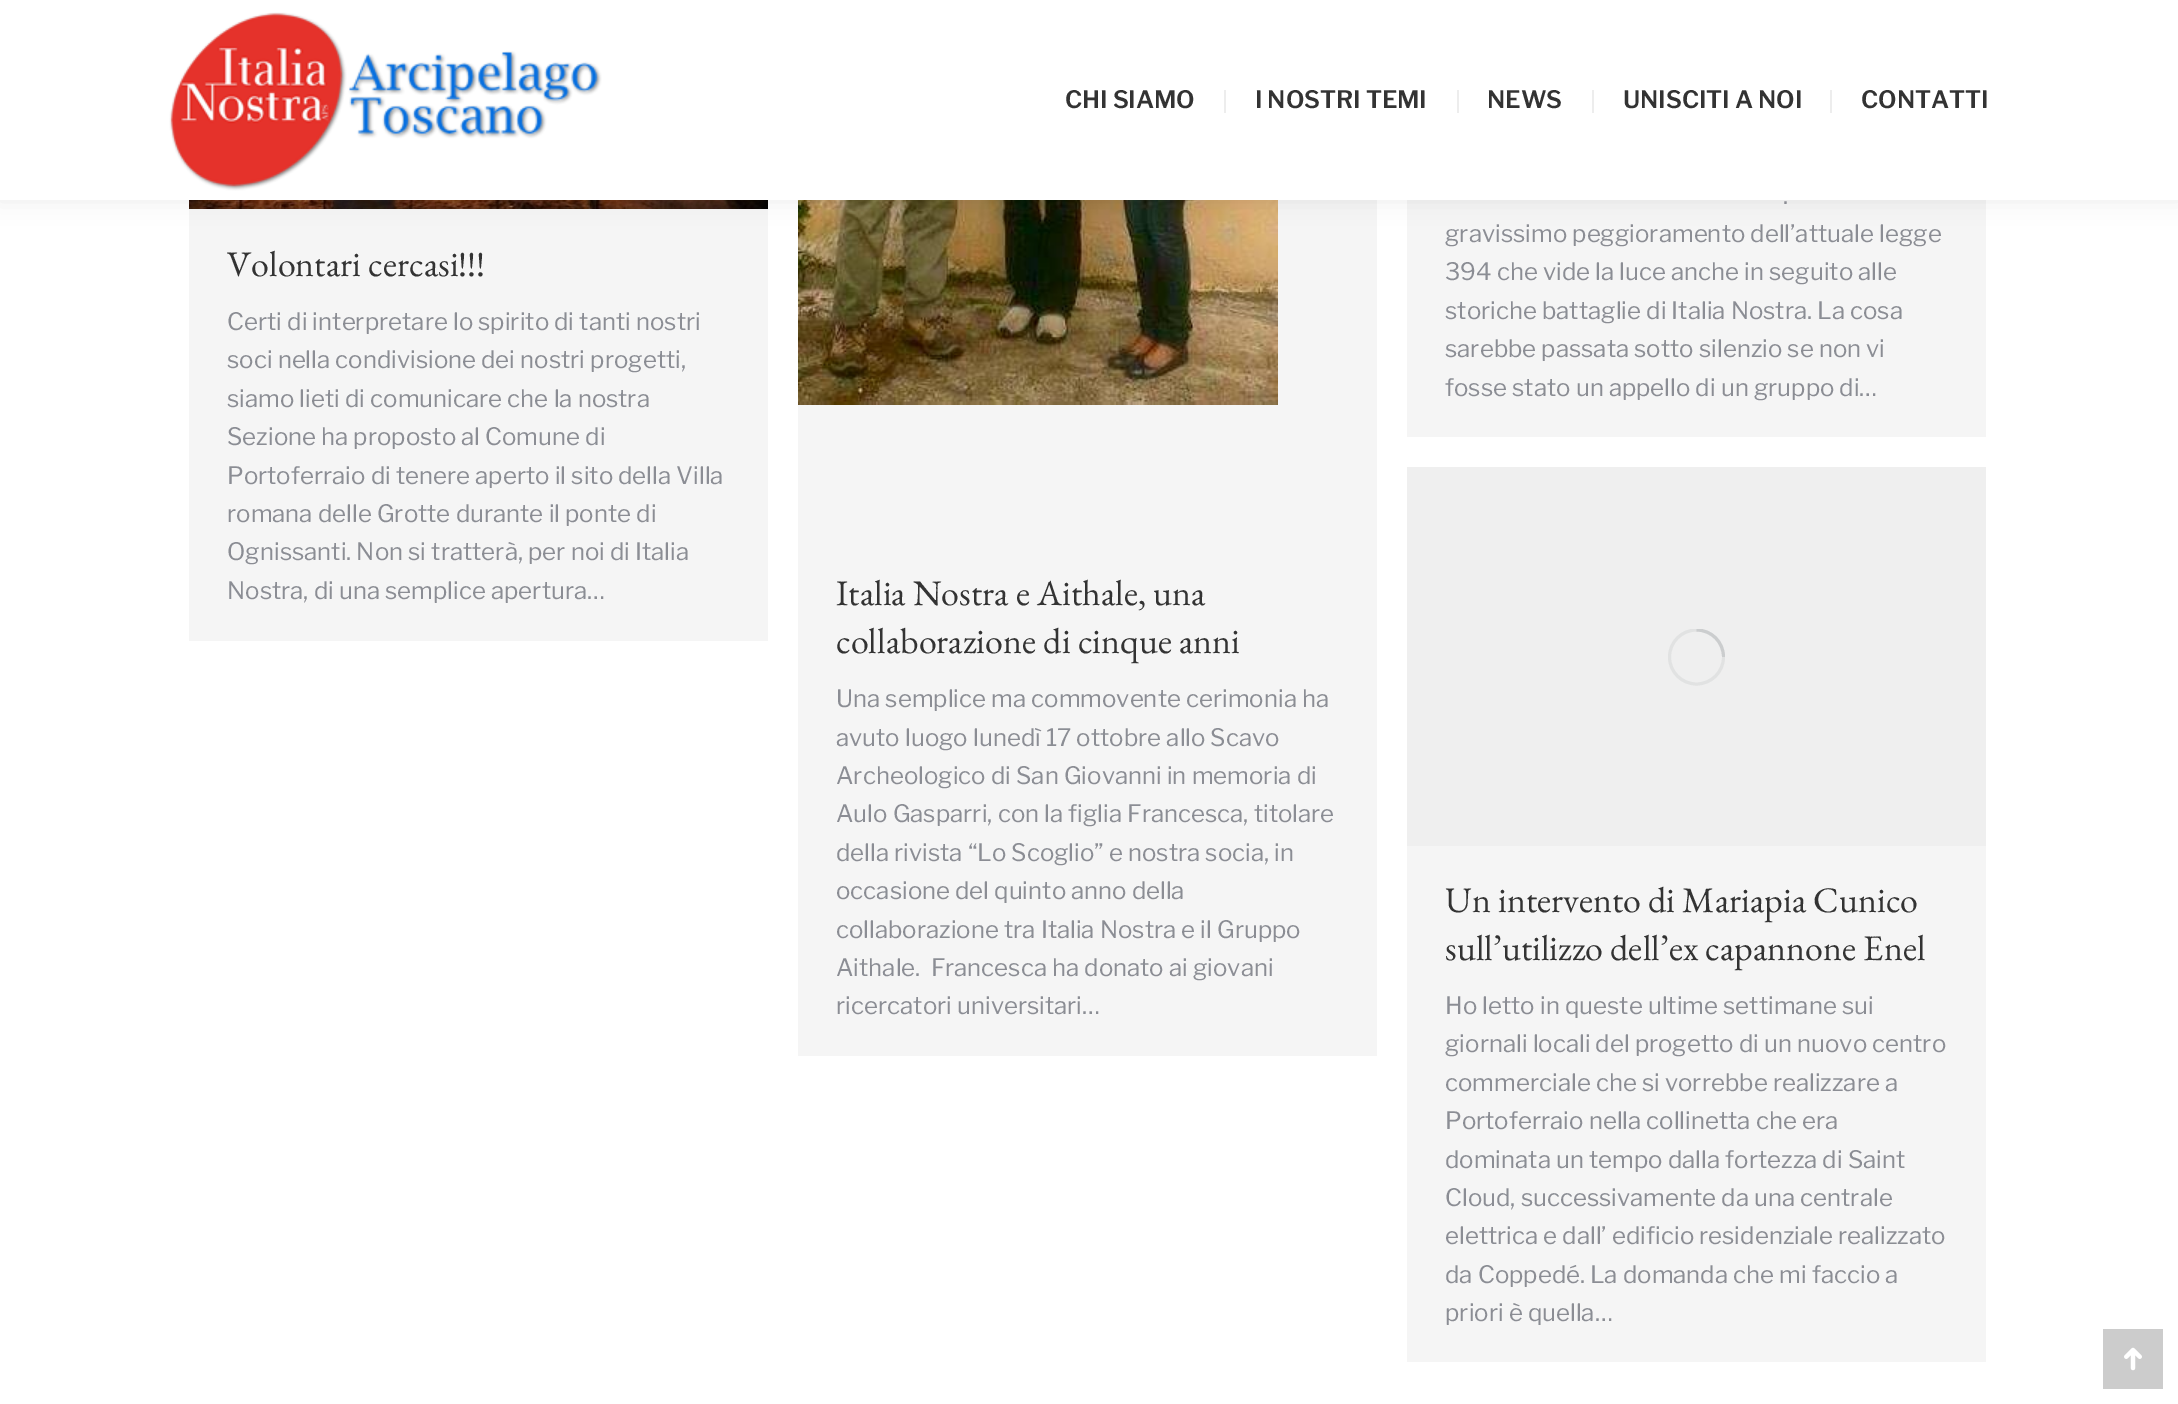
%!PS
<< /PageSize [2178 1404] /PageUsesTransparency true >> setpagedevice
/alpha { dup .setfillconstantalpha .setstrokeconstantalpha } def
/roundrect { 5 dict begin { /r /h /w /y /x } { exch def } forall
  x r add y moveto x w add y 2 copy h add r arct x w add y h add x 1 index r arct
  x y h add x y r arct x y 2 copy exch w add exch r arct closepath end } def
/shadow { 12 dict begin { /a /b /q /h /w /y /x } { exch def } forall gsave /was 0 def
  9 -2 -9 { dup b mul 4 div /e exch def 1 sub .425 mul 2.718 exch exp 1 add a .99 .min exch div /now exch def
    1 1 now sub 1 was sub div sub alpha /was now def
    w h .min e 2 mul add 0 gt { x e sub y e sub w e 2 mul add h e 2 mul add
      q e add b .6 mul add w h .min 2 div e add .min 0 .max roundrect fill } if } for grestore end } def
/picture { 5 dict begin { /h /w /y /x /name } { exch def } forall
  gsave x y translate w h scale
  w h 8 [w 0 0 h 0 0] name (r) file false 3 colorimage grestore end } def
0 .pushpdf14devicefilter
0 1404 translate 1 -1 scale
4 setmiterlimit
1 setgray
0 0 2178 1404 rectfill
0.961 setgray
189 209 579 432 rectfill
(img2.rgb) 189 200 579 9 picture
1407 200 579 237 rectfill
798 200 579 856 rectfill
(img3.rgb) 798 200 480 205 picture
0 setgray
-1 -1 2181 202 0 11 0.07 shadow
1 setgray
0 0 2178 200 rectfill
(img1.rgb) 169 12 433 179 picture
/LibreFranklin-SemiBold [24 0 0 -24 0 0] selectfont
0.2 setgray
1065 108 moveto (CHI SIAMO) show
0.929 setgray
1224 90 2 23 rectfill
0.2 setgray
1255 108 moveto (I NOSTRI TEMI) show
0.929 setgray
1457 90 2 23 rectfill
0.2 setgray
1487 108 moveto (NEWS) show
0.929 setgray
1592 90 2 23 rectfill
0.2 setgray
1623 108 moveto (UNISCITI A NOI) show
0.929 setgray
1830 90 2 23 rectfill
0.2 setgray
1861 108 moveto (CONTATTI) show
/EBGaramond-Regular [36 0 0 -36 0 0] selectfont
227 276 moveto (Volontari cercasi!!!) show
/LibreFranklin-Regular [24 0 0 -24 0 0] selectfont
0.545 0.553 0.58 setrgbcolor
227 330 moveto (Certi di interpretare lo spirito di tanti nostri) show
227 368 moveto (soci nella condivisione dei nostri progetti,) show
227 407 moveto (siamo lieti di comunicare che la nostra) show
227 445 moveto (Sezione ha proposto al Comune di) show
227 484 moveto (Portoferraio di tenere aperto il sito della Villa) show
227 522 moveto (romana delle Grotte durante il ponte di) show
227 560 moveto (Ognissanti. Non si tratterà, per noi di Italia) show
227 599 moveto (Nostra, di una semplice apertura…) show
1783 204 moveto (.) show
1445 242 moveto (gravissimo peggioramento dell’attuale legge) show
1445 280 moveto (394 che vide la luce anche in seguito alle) show
1445 319 moveto (storiche battaglie di Italia Nostra. La cosa) show
1445 357 moveto (sarebbe passata sotto silenzio se non vi) show
1445 396 moveto (fosse stato un appello di un gruppo di…) show
/EBGaramond-Regular [36 0 0 -36 0 0] selectfont
0.2 setgray
836 605 moveto (Italia Nostra e Aithale, una) show
836 653 moveto (collaborazione di cinque anni) show
/LibreFranklin-Regular [24 0 0 -24 0 0] selectfont
0.545 0.553 0.58 setrgbcolor
836 707 moveto (Una semplice ma commovente cerimonia ha) show
836 746 moveto (avuto luogo lunedì 17 ottobre allo Scavo) show
836 784 moveto (Archeologico di San Giovanni in memoria di) show
836 822 moveto (Aulo Gasparri, con la figlia Francesca, titolare) show
836 861 moveto (della rivista “Lo Scoglio” e nostra socia, in) show
836 899 moveto (occasione del quinto anno della) show
836 938 moveto (collaborazione tra Italia Nostra e il Gruppo) show
836 976 moveto (Aithale.  Francesca ha donato ai giovani) show
836 1014 moveto (ricercatori universitari…) show
0.961 setgray
1407 846 579 516 rectfill
0.937 setgray
1407 467 579 379 rectfill
gsave
1668 629 57 57 rectclip
0.882 0.886 0.886 setrgbcolor
3 setlinewidth
newpath 1696.5 657 27 0 360 arc closepath stroke
0.25 alpha
0.545 0.553 0.58 setrgbcolor
newpath 1723.5 657 moveto 1723.5 642 1711.5 630 1696.5 630 curveto stroke
grestore
/EBGaramond-Regular [36 0 0 -36 0 0] selectfont
0.2 setgray
1445 912 moveto (Un intervento di Mariapia Cunico) show
1445 960 moveto (sull’utilizzo dell’ex capannone Enel) show
/LibreFranklin-Regular [24 0 0 -24 0 0] selectfont
0.545 0.553 0.58 setrgbcolor
1445 1014 moveto (Ho letto in queste ultime settimane sui) show
1445 1052 moveto (giornali locali del progetto di un nuovo centro) show
1445 1091 moveto (commerciale che si vorrebbe realizzare a) show
1445 1129 moveto (Portoferraio nella collinetta che era) show
1445 1168 moveto (dominata un tempo dalla fortezza di Saint) show
1445 1206 moveto (Cloud, successivamente da una centrale) show
1445 1244 moveto (elettrica e dall’ edificio residenziale realizzato) show
1445 1283 moveto (da Coppedé. La domanda che mi faccio a) show
1445 1321 moveto (priori è quella…) show
0.8 setgray
2103 1329 60 60 rectfill
(img4.rgb) 2124 1347 18 24 picture
.poppdf14devicefilter showpage
